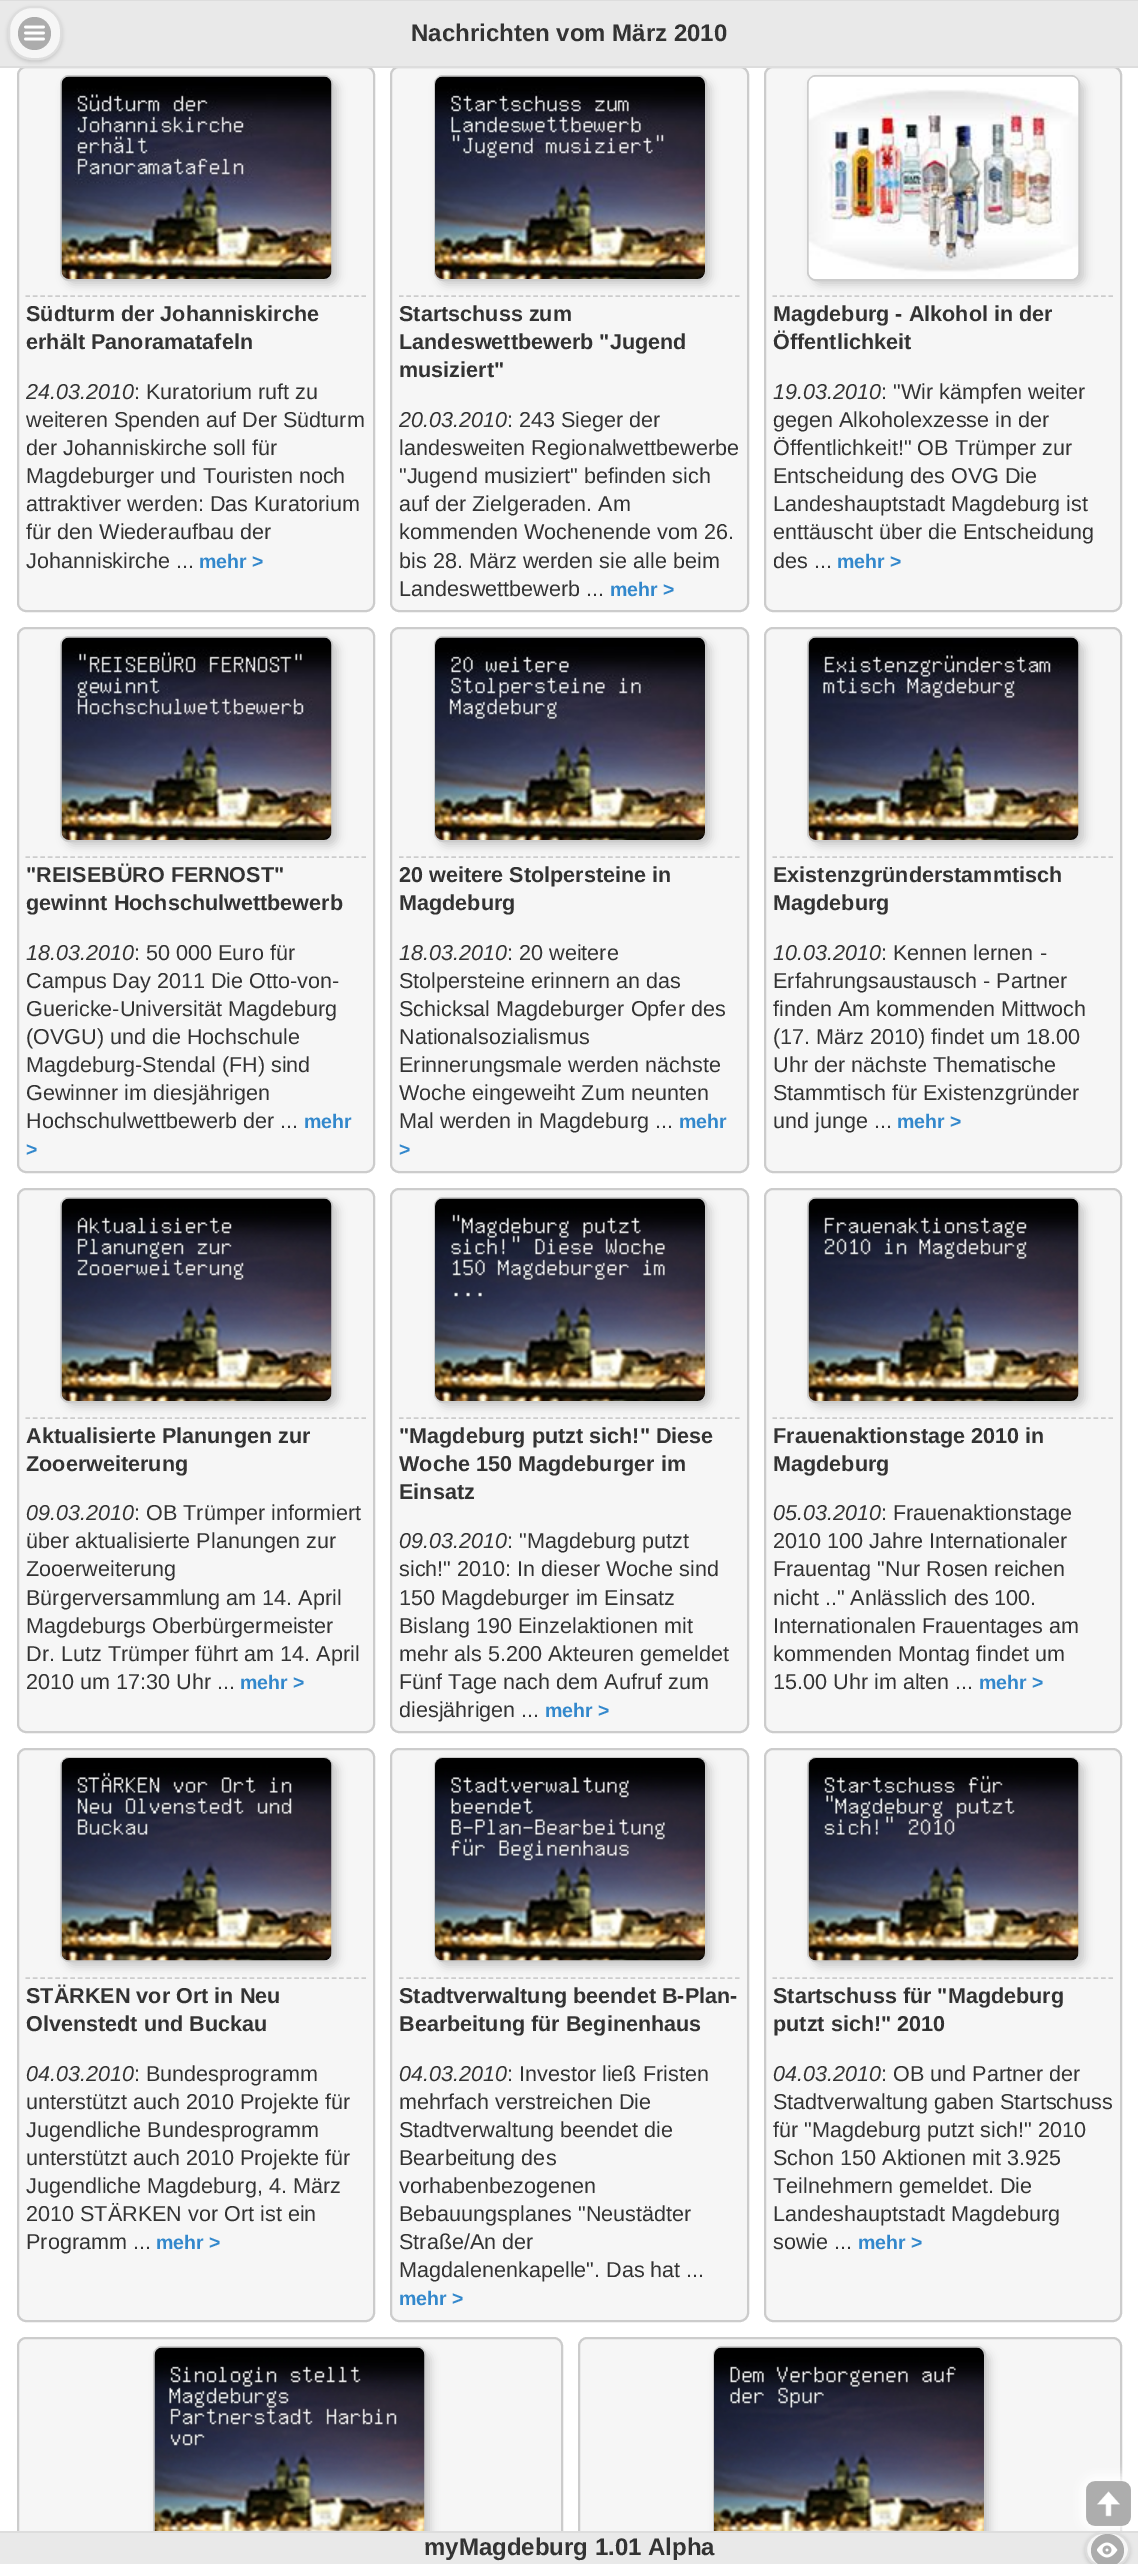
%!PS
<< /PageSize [1138 2564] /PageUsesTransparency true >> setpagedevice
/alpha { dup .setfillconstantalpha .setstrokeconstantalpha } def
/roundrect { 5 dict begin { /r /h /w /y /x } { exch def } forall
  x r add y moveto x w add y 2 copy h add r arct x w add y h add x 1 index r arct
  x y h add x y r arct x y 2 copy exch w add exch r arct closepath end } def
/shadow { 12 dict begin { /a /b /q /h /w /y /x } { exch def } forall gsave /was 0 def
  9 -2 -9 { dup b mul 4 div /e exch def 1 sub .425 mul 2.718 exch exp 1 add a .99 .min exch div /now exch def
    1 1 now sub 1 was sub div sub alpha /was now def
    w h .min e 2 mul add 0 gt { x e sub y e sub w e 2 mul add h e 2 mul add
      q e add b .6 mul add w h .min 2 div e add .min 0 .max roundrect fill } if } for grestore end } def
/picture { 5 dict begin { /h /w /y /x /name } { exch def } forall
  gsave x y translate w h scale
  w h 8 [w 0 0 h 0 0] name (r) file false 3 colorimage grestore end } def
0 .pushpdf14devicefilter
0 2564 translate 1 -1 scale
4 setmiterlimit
1 setgray
0 0 1138 2564 rectfill
0.965 setgray
18 67 356 544 8 roundrect gsave fill grestore
0.8 setgray
2 setlinewidth
stroke
1.5 setlinewidth
[4.5 2.97] 0 setdash
newpath 25.5 296 moveto 366 296 lineto stroke
65 80 273 205 9 4.5 1 shadow
0.965 setgray
391 67 357 544 8 roundrect gsave fill grestore
0.8 setgray
2 setlinewidth
[] 0 setdash
stroke
1.5 setlinewidth
[4.5 2.97] 0 setdash
newpath 399 296 moveto 739.5 296 lineto stroke
438 80 273 205 9 4.5 1 shadow
0.965 setgray
765 67 356 544 8 roundrect gsave fill grestore
0.8 setgray
2 setlinewidth
[] 0 setdash
stroke
1.5 setlinewidth
[4.5 2.97] 0 setdash
newpath 772.5 296 moveto 1113 296 lineto stroke
812 80 273 205 9 4.5 1 shadow
0.914 setgray
0 1 1138 65 rectfill
0.867 setgray
0 0 1138 1 rectfill
0 66 1138 2 rectfill
0 setgray
8 8 54 54 24 2 0.15 shadow
0.965 setgray
9 7 52 52 23 roundrect gsave fill grestore
0.867 setgray
2 setlinewidth
[] 0 setdash
stroke
0.675 setgray
newpath 34.5 33.5 16.5 0 360 arc closepath fill
(img1.rgb) 24 25 21 16 picture
/LiberationSans-Bold [24 0 0 -24 0 0] selectfont
0.2 setgray
411 41 moveto (Nachrichten vom März 2010) show
0.8 setgray
61 76 271 204 8 roundrect stroke
(img2.rgb) 61 76 271 203 picture
/LiberationSans-Bold [21.6 0 0 -21.6 0 0] selectfont
0.2 setgray
26 321 moveto (Südturm der Johanniskirche) show
26 349 moveto (erhält Panoramatafeln) show
/LiberationSans-Italic [21.6 0 0 -21.6 0 0] selectfont
26 399 moveto (24.03.2010) show
/LiberationSans-Regular [21.6 0 0 -21.6 0 0] selectfont
134 399 moveto (: Kuratorium ruft zu) show
26 427 moveto (weiteren Spenden auf Der Südturm) show
26 455 moveto (der Johanniskirche soll für) show
26 483 moveto (Magdeburger und Touristen noch) show
26 511 moveto (attraktiver werden: Das Kuratorium) show
26 539 moveto (für den Wiederaufbau der) show
26 568 moveto (Johanniskirche ...) show
/LiberationSans-Bold [19.5 0 0 -19.5 0 0] selectfont
0.2 0.533 0.8 setrgbcolor
199 568 moveto (mehr >) show
0.8 setgray
435 76 271 204 8 roundrect stroke
(img3.rgb) 435 76 270 203 picture
/LiberationSans-Bold [21.6 0 0 -21.6 0 0] selectfont
0.2 setgray
399 321 moveto (Startschuss zum) show
399 349 moveto (Landeswettbewerb "Jugend) show
399 377 moveto (musiziert") show
/LiberationSans-Italic [21.6 0 0 -21.6 0 0] selectfont
399 427 moveto (20.03.2010) show
/LiberationSans-Regular [21.6 0 0 -21.6 0 0] selectfont
507 427 moveto (: 243 Sieger der) show
399 455 moveto (landesweiten Regionalwettbewerbe) show
399 483 moveto ("Jugend musiziert" befinden sich) show
399 511 moveto (auf der Zielgeraden. Am) show
399 539 moveto (kommenden Wochenende vom 26.) show
399 568 moveto (bis 28. März werden sie alle beim) show
399 596 moveto (Landeswettbewerb ...) show
/LiberationSans-Bold [19.5 0 0 -19.5 0 0] selectfont
0.2 0.533 0.8 setrgbcolor
610 596 moveto (mehr >) show
0.8 setgray
808 76 271 204 8 roundrect stroke
(img4.rgb) 808 76 271 203 picture
/LiberationSans-Bold [21.6 0 0 -21.6 0 0] selectfont
0.2 setgray
773 321 moveto (Magdeburg - Alkohol in der) show
773 349 moveto (Öffentlichkeit) show
/LiberationSans-Italic [21.6 0 0 -21.6 0 0] selectfont
773 399 moveto (19.03.2010) show
/LiberationSans-Regular [21.6 0 0 -21.6 0 0] selectfont
881 399 moveto (: "Wir kämpfen weiter) show
773 427 moveto (gegen Alkoholexzesse in der) show
773 455 moveto (Öffentlichkeit!" OB Trümper zur) show
773 483 moveto (Entscheidung des OVG Die) show
773 511 moveto (Landeshauptstadt Magdeburg ist) show
773 539 moveto (enttäuscht über die Entscheidung) show
773 568 moveto (des ...) show
/LiberationSans-Bold [19.5 0 0 -19.5 0 0] selectfont
0.2 0.533 0.8 setrgbcolor
837 568 moveto (mehr >) show
0.965 setgray
18 628 356 544 8 roundrect gsave fill grestore
0.8 setgray
stroke
1.5 setlinewidth
[4.5 2.97] 0 setdash
newpath 25.5 857 moveto 366 857 lineto stroke
65 641 273 205 9 4.5 1 shadow
2 setlinewidth
[] 0 setdash
61 637 271 204 8 roundrect stroke
(img5.rgb) 61 637 271 203 picture
/LiberationSans-Bold [21.6 0 0 -21.6 0 0] selectfont
0.2 setgray
26 882 moveto ("REISEBÜRO FERNOST") show
26 910 moveto (gewinnt Hochschulwettbewerb) show
/LiberationSans-Italic [21.6 0 0 -21.6 0 0] selectfont
26 960 moveto (18.03.2010) show
/LiberationSans-Regular [21.6 0 0 -21.6 0 0] selectfont
134 960 moveto (: 50 000 Euro für) show
26 988 moveto (Campus Day 2011 Die Otto-von-) show
26 1016 moveto (Guericke-Universität Magdeburg) show
26 1044 moveto (\(OVGU\) und die Hochschule) show
26 1072 moveto (Magdeburg-Stendal \(FH\) sind) show
26 1100 moveto (Gewinner im diesjährigen) show
26 1128 moveto (Hochschulwettbewerb der ...) show
/LiberationSans-Bold [19.5 0 0 -19.5 0 0] selectfont
0.2 0.533 0.8 setrgbcolor
304 1128 moveto (mehr) show
26 1156 moveto (>) show
0.965 setgray
391 628 357 544 8 roundrect gsave fill grestore
0.8 setgray
stroke
1.5 setlinewidth
[4.5 2.97] 0 setdash
newpath 399 857 moveto 739.5 857 lineto stroke
438 641 273 205 9 4.5 1 shadow
2 setlinewidth
[] 0 setdash
435 637 271 204 8 roundrect stroke
(img6.rgb) 435 637 270 203 picture
/LiberationSans-Bold [21.6 0 0 -21.6 0 0] selectfont
0.2 setgray
399 882 moveto (20 weitere Stolpersteine in) show
399 910 moveto (Magdeburg) show
/LiberationSans-Italic [21.6 0 0 -21.6 0 0] selectfont
399 960 moveto (18.03.2010) show
/LiberationSans-Regular [21.6 0 0 -21.6 0 0] selectfont
507 960 moveto (: 20 weitere) show
399 988 moveto (Stolpersteine erinnern an das) show
399 1016 moveto (Schicksal Magdeburger Opfer des) show
399 1044 moveto (Nationalsozialismus) show
399 1072 moveto (Erinnerungsmale werden nächste) show
399 1100 moveto (Woche eingeweiht Zum neunten) show
399 1128 moveto (Mal werden in Magdeburg ...) show
/LiberationSans-Bold [19.5 0 0 -19.5 0 0] selectfont
0.2 0.533 0.8 setrgbcolor
679 1128 moveto (mehr) show
399 1156 moveto (>) show
0.965 setgray
765 628 356 544 8 roundrect gsave fill grestore
0.8 setgray
stroke
1.5 setlinewidth
[4.5 2.97] 0 setdash
newpath 772.5 857 moveto 1113 857 lineto stroke
812 641 273 205 9 4.5 1 shadow
2 setlinewidth
[] 0 setdash
808 637 271 204 8 roundrect stroke
(img7.rgb) 808 637 271 203 picture
/LiberationSans-Bold [21.6 0 0 -21.6 0 0] selectfont
0.2 setgray
773 882 moveto (Existenzgründerstammtisch) show
773 910 moveto (Magdeburg) show
/LiberationSans-Italic [21.6 0 0 -21.6 0 0] selectfont
773 960 moveto (10.03.2010) show
/LiberationSans-Regular [21.6 0 0 -21.6 0 0] selectfont
881 960 moveto (: Kennen lernen -) show
773 988 moveto (Erfahrungsaustausch - Partner) show
773 1016 moveto (finden Am kommenden Mittwoch) show
773 1044 moveto (\(17. März 2010\) findet um 18.00) show
773 1072 moveto (Uhr der nächste Thematische) show
773 1100 moveto (Stammtisch für Existenzgründer) show
773 1128 moveto (und junge ...) show
/LiberationSans-Bold [19.5 0 0 -19.5 0 0] selectfont
0.2 0.533 0.8 setrgbcolor
897 1128 moveto (mehr >) show
0.965 setgray
18 1189 356 543 8 roundrect gsave fill grestore
0.8 setgray
stroke
1.5 setlinewidth
[4.5 2.97] 0 setdash
newpath 25.5 1418 moveto 366 1418 lineto stroke
65 1202 273 205 9 4.5 1 shadow
2 setlinewidth
[] 0 setdash
61 1198 271 204 8 roundrect stroke
(img8.rgb) 61 1198 271 203 picture
/LiberationSans-Bold [21.6 0 0 -21.6 0 0] selectfont
0.2 setgray
26 1443 moveto (Aktualisierte Planungen zur) show
26 1471 moveto (Zooerweiterung) show
/LiberationSans-Italic [21.6 0 0 -21.6 0 0] selectfont
26 1520 moveto (09.03.2010) show
/LiberationSans-Regular [21.6 0 0 -21.6 0 0] selectfont
134 1520 moveto (: OB Trümper informiert) show
26 1548 moveto (über aktualisierte Planungen zur) show
26 1576 moveto (Zooerweiterung) show
26 1605 moveto (Bürgerversammlung am 14. April) show
26 1633 moveto (Magdeburgs Oberbürgermeister) show
26 1661 moveto (Dr. Lutz Trümper führt am 14. April) show
26 1689 moveto (2010 um 17:30 Uhr ...) show
/LiberationSans-Bold [19.5 0 0 -19.5 0 0] selectfont
0.2 0.533 0.8 setrgbcolor
240 1689 moveto (mehr >) show
0.965 setgray
391 1189 357 543 8 roundrect gsave fill grestore
0.8 setgray
stroke
1.5 setlinewidth
[4.5 2.97] 0 setdash
newpath 399 1418 moveto 739.5 1418 lineto stroke
438 1202 273 205 9 4.5 1 shadow
2 setlinewidth
[] 0 setdash
435 1198 271 204 8 roundrect stroke
(img9.rgb) 435 1198 270 203 picture
/LiberationSans-Bold [21.6 0 0 -21.6 0 0] selectfont
0.2 setgray
399 1443 moveto ("Magdeburg putzt sich!" Diese) show
399 1471 moveto (Woche 150 Magdeburger im) show
399 1499 moveto (Einsatz) show
/LiberationSans-Italic [21.6 0 0 -21.6 0 0] selectfont
399 1548 moveto (09.03.2010) show
/LiberationSans-Regular [21.6 0 0 -21.6 0 0] selectfont
507 1548 moveto (: "Magdeburg putzt) show
399 1576 moveto (sich!" 2010: In dieser Woche sind) show
399 1605 moveto (150 Magdeburger im Einsatz) show
399 1633 moveto (Bislang 190 Einzelaktionen mit) show
399 1661 moveto (mehr als 5.200 Akteuren gemeldet) show
399 1689 moveto (Fünf Tage nach dem Aufruf zum) show
399 1717 moveto (diesjährigen ...) show
/LiberationSans-Bold [19.5 0 0 -19.5 0 0] selectfont
0.2 0.533 0.8 setrgbcolor
545 1717 moveto (mehr >) show
0.965 setgray
765 1189 356 543 8 roundrect gsave fill grestore
0.8 setgray
stroke
1.5 setlinewidth
[4.5 2.97] 0 setdash
newpath 772.5 1418 moveto 1113 1418 lineto stroke
812 1202 273 205 9 4.5 1 shadow
2 setlinewidth
[] 0 setdash
808 1198 271 204 8 roundrect stroke
(img10.rgb) 808 1198 271 203 picture
/LiberationSans-Bold [21.6 0 0 -21.6 0 0] selectfont
0.2 setgray
773 1443 moveto (Frauenaktionstage 2010 in) show
773 1471 moveto (Magdeburg) show
/LiberationSans-Italic [21.6 0 0 -21.6 0 0] selectfont
773 1520 moveto (05.03.2010) show
/LiberationSans-Regular [21.6 0 0 -21.6 0 0] selectfont
881 1520 moveto (: Frauenaktionstage) show
773 1548 moveto (2010 100 Jahre Internationaler) show
773 1576 moveto (Frauentag "Nur Rosen reichen) show
773 1605 moveto (nicht .." Anlässlich des 100.) show
773 1633 moveto (Internationalen Frauentages am) show
773 1661 moveto (kommenden Montag findet um) show
773 1689 moveto (15.00 Uhr im alten ...) show
/LiberationSans-Bold [19.5 0 0 -19.5 0 0] selectfont
0.2 0.533 0.8 setrgbcolor
979 1689 moveto (mehr >) show
0.965 setgray
18 1749 356 572 8 roundrect gsave fill grestore
0.8 setgray
stroke
1.5 setlinewidth
[4.5 2.97] 0 setdash
newpath 25.5 1978 moveto 366 1978 lineto stroke
65 1761 273 206 9 4.5 1 shadow
2 setlinewidth
[] 0 setdash
61 1758 271 203 8 roundrect stroke
(img11.rgb) 61 1758 271 203 picture
/LiberationSans-Bold [21.6 0 0 -21.6 0 0] selectfont
0.2 setgray
26 2003 moveto (STÄRKEN vor Ort in Neu) show
26 2031 moveto (Olvenstedt und Buckau) show
/LiberationSans-Italic [21.6 0 0 -21.6 0 0] selectfont
26 2081 moveto (04.03.2010) show
/LiberationSans-Regular [21.6 0 0 -21.6 0 0] selectfont
134 2081 moveto (: Bundesprogramm) show
26 2109 moveto (unterstützt auch 2010 Projekte für) show
26 2137 moveto (Jugendliche Bundesprogramm) show
26 2165 moveto (unterstützt auch 2010 Projekte für) show
26 2193 moveto (Jugendliche Magdeburg, 4. März) show
26 2221 moveto (2010 STÄRKEN vor Ort ist ein) show
26 2249 moveto (Programm ...) show
/LiberationSans-Bold [19.5 0 0 -19.5 0 0] selectfont
0.2 0.533 0.8 setrgbcolor
156 2249 moveto (mehr >) show
0.965 setgray
391 1749 357 572 8 roundrect gsave fill grestore
0.8 setgray
stroke
1.5 setlinewidth
[4.5 2.97] 0 setdash
newpath 399 1978 moveto 739.5 1978 lineto stroke
438 1761 273 206 9 4.5 1 shadow
2 setlinewidth
[] 0 setdash
435 1758 271 203 8 roundrect stroke
(img12.rgb) 435 1758 270 203 picture
/LiberationSans-Bold [21.6 0 0 -21.6 0 0] selectfont
0.2 setgray
399 2003 moveto (Stadtverwaltung beendet B-Plan-) show
399 2031 moveto (Bearbeitung für Beginenhaus) show
/LiberationSans-Italic [21.6 0 0 -21.6 0 0] selectfont
399 2081 moveto (04.03.2010) show
/LiberationSans-Regular [21.6 0 0 -21.6 0 0] selectfont
507 2081 moveto (: Investor ließ Fristen) show
399 2109 moveto (mehrfach verstreichen Die) show
399 2137 moveto (Stadtverwaltung beendet die) show
399 2165 moveto (Bearbeitung des) show
399 2193 moveto (vorhabenbezogenen) show
399 2221 moveto (Bebauungsplanes "Neustädter) show
399 2249 moveto (Straße/An der) show
399 2277 moveto (Magdalenenkapelle". Das hat ...) show
/LiberationSans-Bold [19.5 0 0 -19.5 0 0] selectfont
0.2 0.533 0.8 setrgbcolor
399 2305 moveto (mehr >) show
0.965 setgray
765 1749 356 572 8 roundrect gsave fill grestore
0.8 setgray
stroke
1.5 setlinewidth
[4.5 2.97] 0 setdash
newpath 772.5 1978 moveto 1113 1978 lineto stroke
812 1761 273 206 9 4.5 1 shadow
2 setlinewidth
[] 0 setdash
808 1758 271 203 8 roundrect stroke
(img13.rgb) 808 1758 271 203 picture
/LiberationSans-Bold [21.6 0 0 -21.6 0 0] selectfont
0.2 setgray
773 2003 moveto (Startschuss für "Magdeburg) show
773 2031 moveto (putzt sich!" 2010) show
/LiberationSans-Italic [21.6 0 0 -21.6 0 0] selectfont
773 2081 moveto (04.03.2010) show
/LiberationSans-Regular [21.6 0 0 -21.6 0 0] selectfont
881 2081 moveto (: OB und Partner der) show
773 2109 moveto (Stadtverwaltung gaben Startschuss) show
773 2137 moveto (für "Magdeburg putzt sich!" 2010) show
773 2165 moveto (Schon 150 Aktionen mit 3.925) show
773 2193 moveto (Teilnehmern gemeldet. Die) show
773 2221 moveto (Landeshauptstadt Magdeburg) show
773 2249 moveto (sowie ...) show
/LiberationSans-Bold [19.5 0 0 -19.5 0 0] selectfont
0.2 0.533 0.8 setrgbcolor
858 2249 moveto (mehr >) show
0.965 setgray
18 2338 544 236 8 roundrect gsave fill grestore
0.8 setgray
stroke
158 2351 273 205 9 4.5 1 shadow
154 2347 271 204 8 roundrect stroke
(img14.rgb) 154 2347 271 184 picture
0.965 setgray
579 2338 542 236 8 roundrect gsave fill grestore
0.8 setgray
stroke
717 2351 273 205 9 4.5 1 shadow
714 2347 271 204 8 roundrect stroke
(img15.rgb) 714 2347 270 184 picture
1 setgray
1080 2475 57 57 15 6 0.9 shadow
1086 2481 45 45 9 roundrect fill
(img16.rgb) 1086 2481 45 45 picture
0.914 setgray
0 2533 1138 31 rectfill
0.867 setgray
0 2531 1138 2 rectfill
/LiberationSans-Bold [24 0 0 -24 0 0] selectfont
0.2 setgray
424 2555 moveto (myMagdeburg 1.01 Alpha) show
0 setgray
1085 2534 45 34 17 2 0.15 shadow
0.965 setgray
1086 2533 43 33 16.5 roundrect gsave fill grestore
0.867 setgray
stroke
0.675 setgray
newpath 1107.5 2550.5 16.5 0 360 arc closepath fill
(img17.rgb) 1097 2542 21 16 picture
.poppdf14devicefilter showpage
